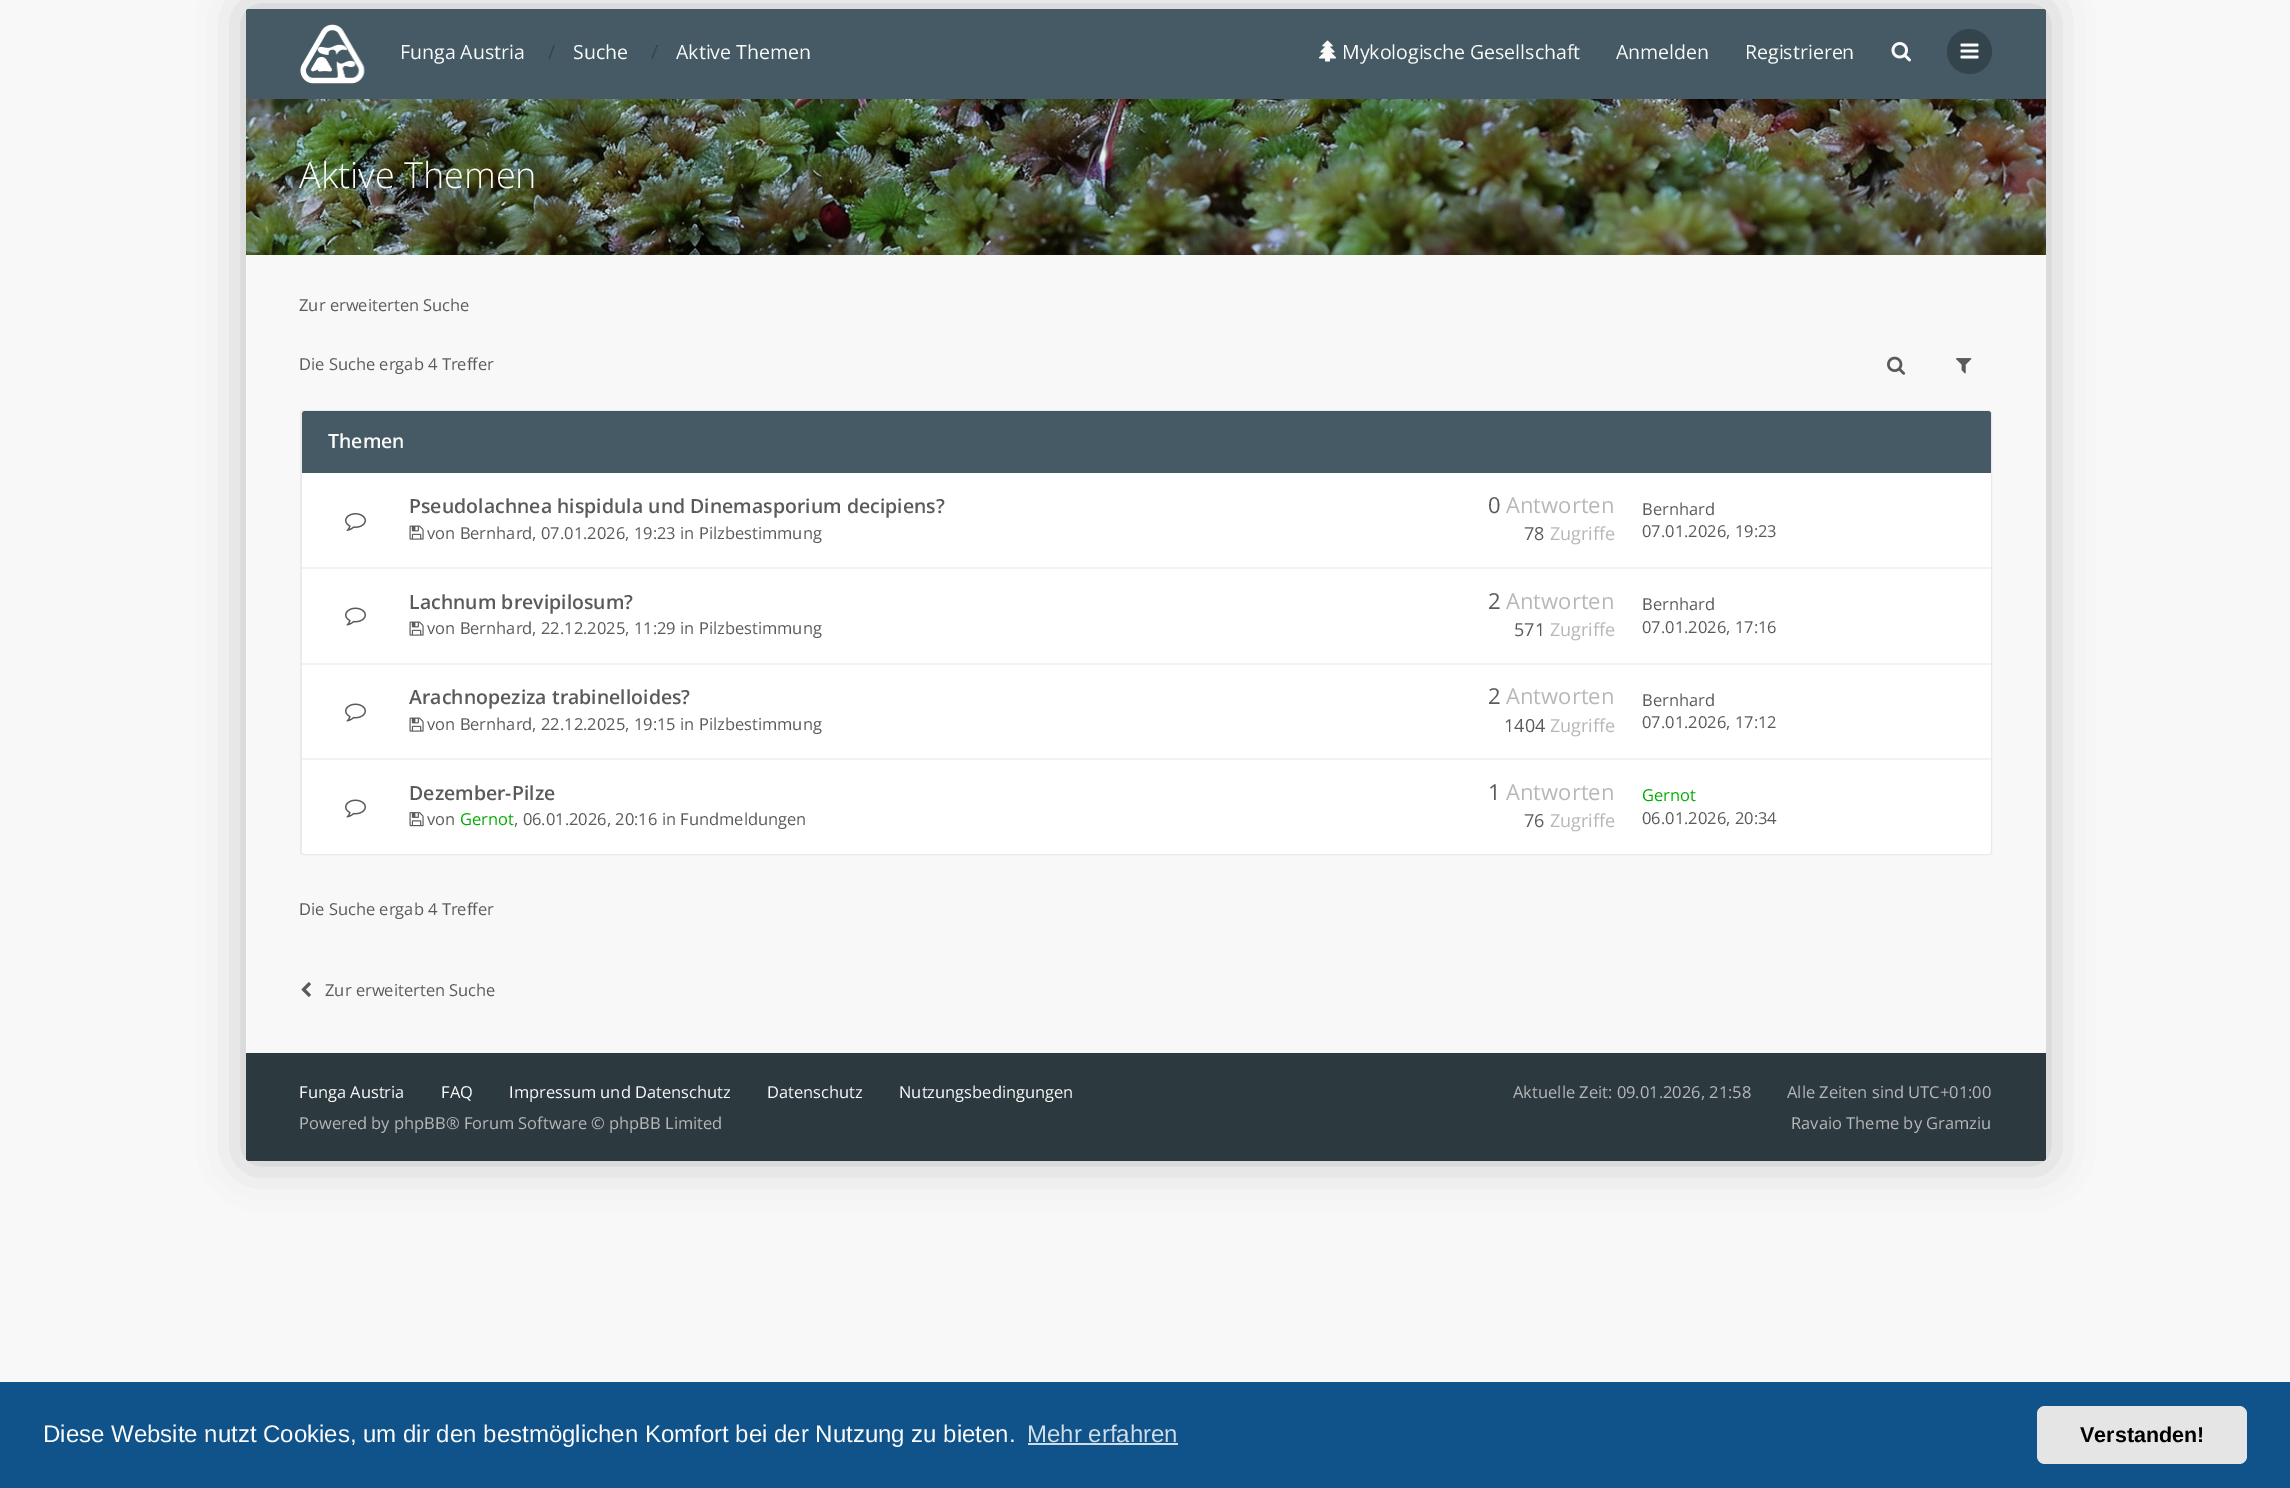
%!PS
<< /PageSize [2290 1488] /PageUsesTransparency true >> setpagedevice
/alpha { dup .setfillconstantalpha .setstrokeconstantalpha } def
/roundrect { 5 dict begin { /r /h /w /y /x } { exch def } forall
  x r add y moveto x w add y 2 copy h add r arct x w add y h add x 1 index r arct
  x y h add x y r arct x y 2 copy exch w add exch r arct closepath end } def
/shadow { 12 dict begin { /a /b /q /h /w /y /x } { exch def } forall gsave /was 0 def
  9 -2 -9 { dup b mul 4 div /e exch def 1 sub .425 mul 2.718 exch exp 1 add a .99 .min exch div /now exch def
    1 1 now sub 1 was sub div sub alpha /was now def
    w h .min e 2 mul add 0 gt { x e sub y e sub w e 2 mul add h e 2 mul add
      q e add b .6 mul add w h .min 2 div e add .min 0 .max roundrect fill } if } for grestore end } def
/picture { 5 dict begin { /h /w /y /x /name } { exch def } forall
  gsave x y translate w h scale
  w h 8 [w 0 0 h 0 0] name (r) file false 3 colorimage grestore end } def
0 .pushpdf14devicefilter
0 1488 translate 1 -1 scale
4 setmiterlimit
0.973 setgray
0 0 2290 1488 rectfill
0 setgray
246 9 1800 1152 3 22.5 0.24 shadow
(img5.rgb) 246 9 1800 246 picture
0.271 0.353 0.392 setrgbcolor
newpath 249 9 moveto 2043 9 lineto 2044.5 9 2046 10.5 2046 12 curveto 2046 99 lineto 246 99 lineto 246 12 lineto 246 10.5 247.5 9 249 9 curveto closepath fill
(img1.rgb) 300 24 65 60 picture
/OpenSans-Regular [19.5 0 0 -19.5 0 0] selectfont
0.98 setgray
400 59 moveto (Funga Austria) show
0.204 0.267 0.298 setrgbcolor
548 59 moveto (/) show
0.98 setgray
573 59 moveto (Suche) show
0.204 0.267 0.298 setrgbcolor
651 59 moveto (/) show
0.98 setgray
676 59 moveto (Aktive Themen) show
(img2.rgb) 1318 40 19 22 picture
1342 59 moveto (Mykologische Gesellschaft) show
1616 59 moveto (Anmelden) show
1745 59 moveto (Registrieren) show
(img3.rgb) 1891 42 20 20 picture
0.204 0.267 0.298 setrgbcolor
newpath 1969.5 51.5 22.5 0 360 arc closepath fill
(img4.rgb) 1960 43 19 16 picture
/OpenSans-Light [36 0 0 -36 0 0] selectfont
0.98 setgray
299 188 moveto (Aktive Themen) show
0.973 setgray
246 255 1800 798 rectfill
/OpenSans-Regular [16.5 0 0 -16.5 0 0] selectfont
0.353 setgray
299 311 moveto (Zur erweiterten Suche) show
299 370 moveto (Die Suche ergab 4 Treffer) show
(img6.rgb) 1887 356 19 19 picture
(img7.rgb) 1956 358 16 16 picture
0.918 setgray
2 setlinewidth
301 411 1690 443 2 roundrect stroke
0.271 0.353 0.392 setrgbcolor
newpath 305 411 moveto 1988 411 lineto 1989.5 411 1991 412.5 1991 414 curveto 1991 473 lineto 302 473 lineto 302 414 lineto 302 412.5 303.5 411 305 411 curveto closepath fill
/OpenSans-SemiBold [19.5 0 0 -19.5 0 0] selectfont
0.98 setgray
328 448 moveto (Themen) show
1 setgray
302 473 1689 94 rectfill
(img8.rgb) 345 513 21 18 picture
0.353 setgray
409 513 moveto (Pseudolachnea hispidula und Dinemasporium decipiens?) show
(img9.rgb) 409 525 15 15 picture
/OpenSans-Regular [16.5 0 0 -16.5 0 0] selectfont
427 539 moveto (von Bernhard, 07.01.2026, 19:23 in Pilzbestimmung) show
/OpenSans-Regular [22 0 0 -22 0 0] selectfont
1488 513 moveto (0) show
0.718 setgray
1506 513 moveto (Antworten) show
/OpenSans-Regular [18 0 0 -18 0 0] selectfont
0.353 setgray
1524 540 moveto (78) show
0.718 setgray
1550 540 moveto (Zugriffe) show
/OpenSans-Regular [16.5 0 0 -16.5 0 0] selectfont
0.353 setgray
1642 515 moveto (Bernhard) show
1642 537 moveto (07.01.2026, 19:23) show
1 setgray
302 569 1689 94 rectfill
0.949 setgray
302 567 1689 2 rectfill
(img10.rgb) 345 607 21 19 picture
/OpenSans-SemiBold [19.5 0 0 -19.5 0 0] selectfont
0.353 setgray
409 609 moveto (Lachnum brevipilosum?) show
(img9.rgb) 409 621 15 15 picture
/OpenSans-Regular [16.5 0 0 -16.5 0 0] selectfont
427 634 moveto (von Bernhard, 22.12.2025, 11:29 in Pilzbestimmung) show
/OpenSans-Regular [22 0 0 -22 0 0] selectfont
1488 609 moveto (2) show
0.718 setgray
1506 609 moveto (Antworten) show
/OpenSans-Regular [18 0 0 -18 0 0] selectfont
0.353 setgray
1514 636 moveto (571) show
0.718 setgray
1550 636 moveto (Zugriffe) show
/OpenSans-Regular [16.5 0 0 -16.5 0 0] selectfont
0.353 setgray
1642 610 moveto (Bernhard) show
1642 633 moveto (07.01.2026, 17:16) show
1 setgray
302 665 1689 93 rectfill
0.949 setgray
302 663 1689 2 rectfill
(img10.rgb) 345 703 21 19 picture
/OpenSans-SemiBold [19.5 0 0 -19.5 0 0] selectfont
0.353 setgray
409 704 moveto (Arachnopeziza trabinelloides?) show
(img9.rgb) 409 717 15 15 picture
/OpenSans-Regular [16.5 0 0 -16.5 0 0] selectfont
427 730 moveto (von Bernhard, 22.12.2025, 19:15 in Pilzbestimmung) show
/OpenSans-Regular [22 0 0 -22 0 0] selectfont
1488 704 moveto (2) show
0.718 setgray
1506 704 moveto (Antworten) show
/OpenSans-Regular [18 0 0 -18 0 0] selectfont
0.353 setgray
1504 732 moveto (1404) show
0.718 setgray
1550 732 moveto (Zugriffe) show
/OpenSans-Regular [16.5 0 0 -16.5 0 0] selectfont
0.353 setgray
1642 706 moveto (Bernhard) show
1642 728 moveto (07.01.2026, 17:12) show
1 setgray
newpath 302 758 moveto 1991 758 lineto 1991 851 lineto 1991 852.5 1989.5 854 1988 854 curveto 305 854 lineto 303.5 854 302 852.5 302 851 curveto closepath fill
0.949 setgray
302 758 1689 2 rectfill
(img10.rgb) 345 799 21 19 picture
/OpenSans-SemiBold [19.5 0 0 -19.5 0 0] selectfont
0.353 setgray
409 800 moveto (Dezember-Pilze) show
(img11.rgb) 409 812 15 15 picture
/OpenSans-Regular [16.5 0 0 -16.5 0 0] selectfont
427 825 moveto (von) show
0 0.667 0 setrgbcolor
460 825 moveto (Gernot) show
0.353 setgray
514 825 moveto (, 06.01.2026, 20:16 in Fundmeldungen) show
/OpenSans-Regular [22 0 0 -22 0 0] selectfont
1488 800 moveto (1) show
0.718 setgray
1506 800 moveto (Antworten) show
/OpenSans-Regular [18 0 0 -18 0 0] selectfont
0.353 setgray
1524 827 moveto (76) show
0.718 setgray
1550 827 moveto (Zugriffe) show
/OpenSans-Regular [16.5 0 0 -16.5 0 0] selectfont
0 0.667 0 setrgbcolor
1642 801 moveto (Gernot) show
0.353 setgray
1642 824 moveto (06.01.2026, 20:34) show
299 915 moveto (Die Suche ergab 4 Treffer) show
(img12.rgb) 301 982 10 15 picture
325 996 moveto (Zur erweiterten Suche) show
0.173 0.224 0.247 setrgbcolor
newpath 246 1053 moveto 2046 1053 lineto 2046 1158 lineto 2046 1159.5 2044.5 1161 2043 1161 curveto 249 1161 lineto 247.5 1161 246 1159.5 246 1158 curveto closepath fill
0.98 setgray
299 1098 moveto (Funga Austria) show
441 1098 moveto (FAQ) show
509 1098 moveto (Impressum und Datenschutz) show
767 1098 moveto (Datenschutz) show
899 1098 moveto (Nutzungsbedingungen) show
0.718 setgray
1513 1098 moveto (Aktuelle Zeit: 09.01.2026, 21:58) show
1787 1098 moveto (Alle Zeiten sind UTC+01:00) show
299 1129 moveto (Powered by phpBB® Forum Software © phpBB Limited) show
1791 1129 moveto (Ravaio Theme by Gramziu) show
0.059 0.325 0.541 setrgbcolor
0 1382 2290 106 rectfill
/LiberationSans-Regular [24 0 0 -24 0 0] selectfont
0.98 setgray
43 1442 moveto (Diese Website nutzt Cookies, um dir den bestmöglichen Komfort bei der Nutzung zu bieten.) show
0.812 0.867 0.91 setrgbcolor
1027 1442 moveto (Mehr erfahren) show
1028 1443 150 2 rectfill
0.898 setgray
2037 1406 210 58 8 roundrect fill
/LiberationSans-Bold [21.5 0 0 -21.5 0 0] selectfont
0 setgray
2080 1442 moveto (Verstanden!) show
.poppdf14devicefilter showpage
